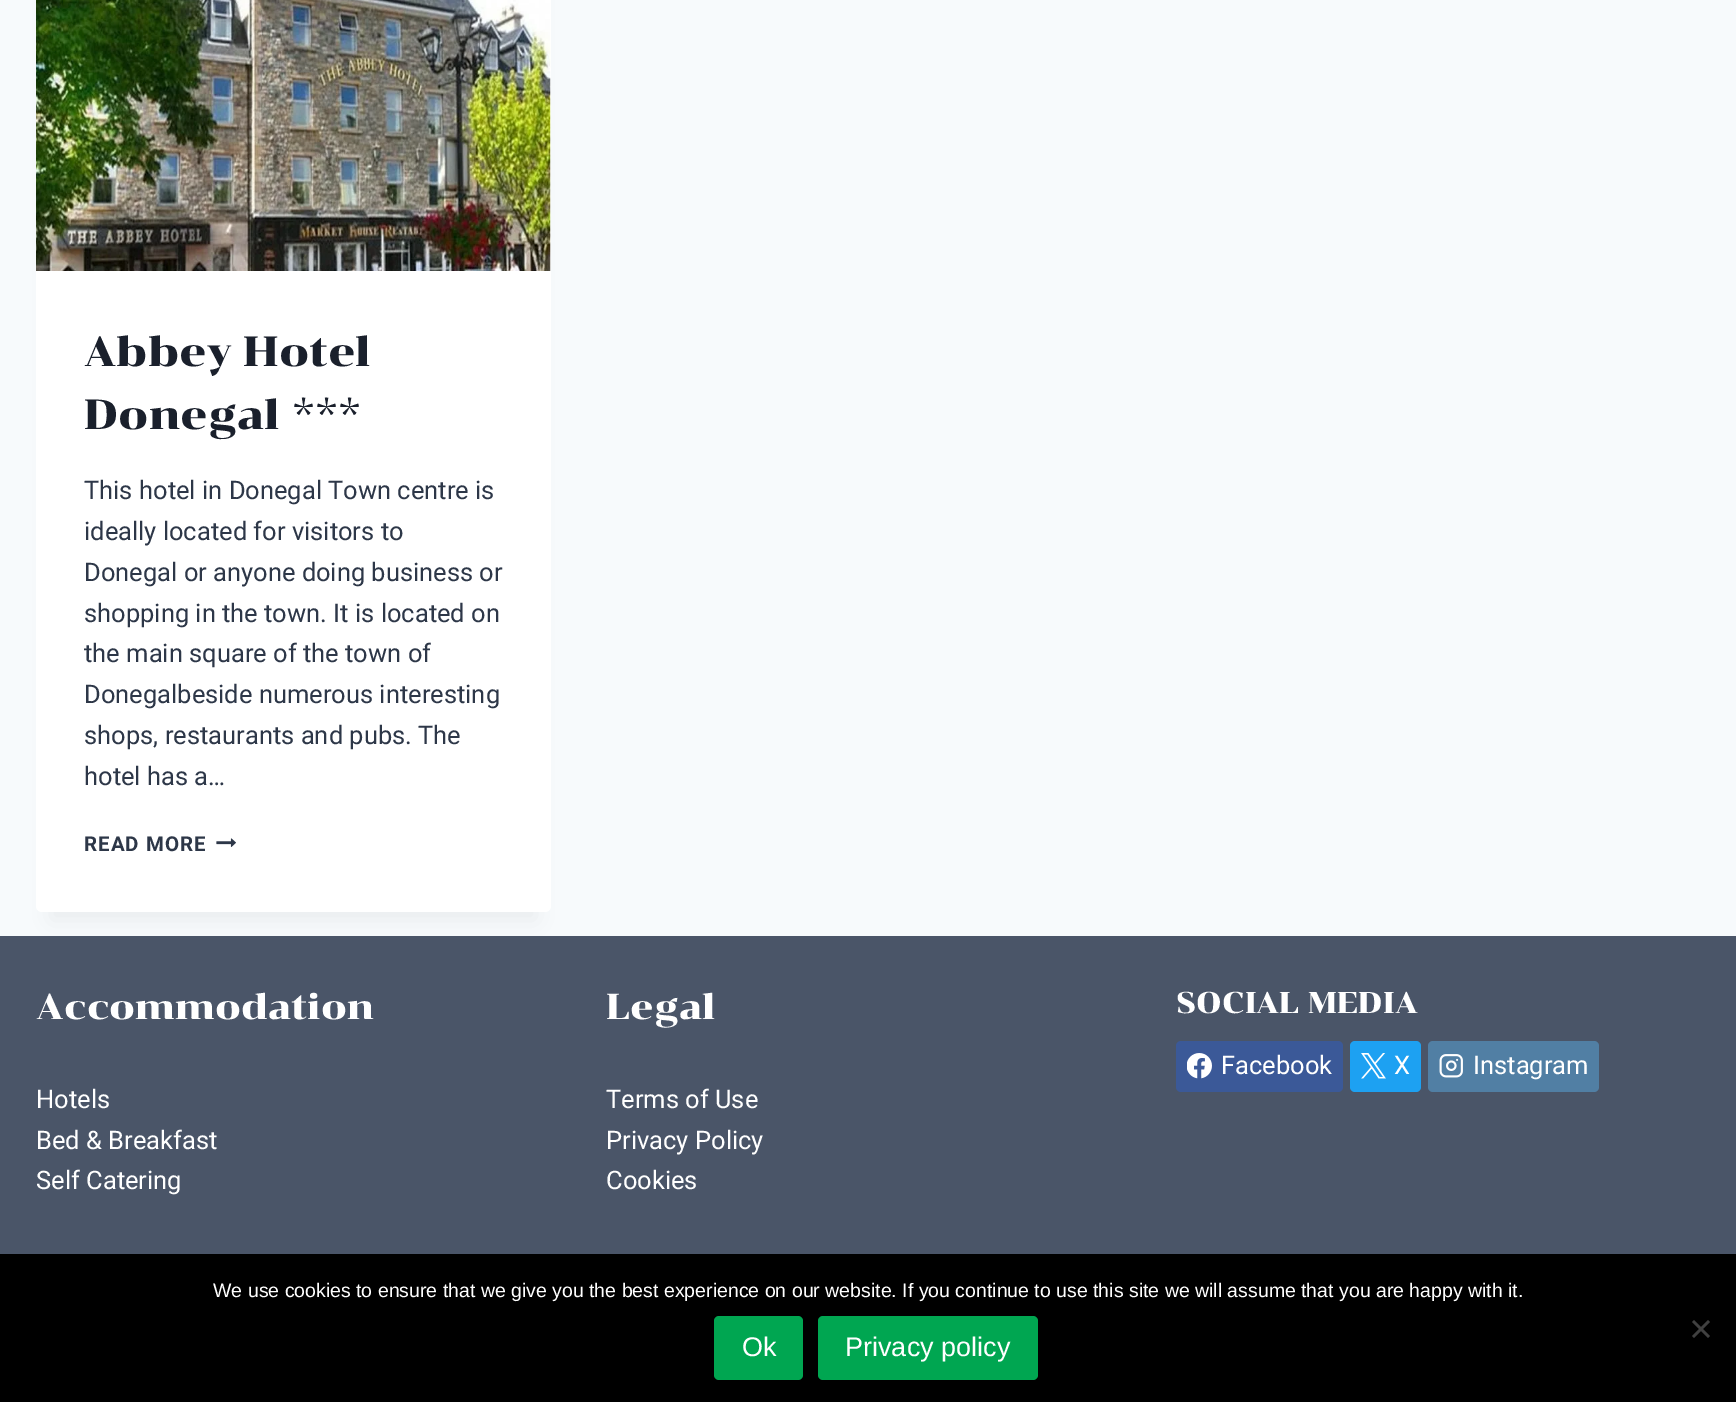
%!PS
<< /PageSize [1736 1402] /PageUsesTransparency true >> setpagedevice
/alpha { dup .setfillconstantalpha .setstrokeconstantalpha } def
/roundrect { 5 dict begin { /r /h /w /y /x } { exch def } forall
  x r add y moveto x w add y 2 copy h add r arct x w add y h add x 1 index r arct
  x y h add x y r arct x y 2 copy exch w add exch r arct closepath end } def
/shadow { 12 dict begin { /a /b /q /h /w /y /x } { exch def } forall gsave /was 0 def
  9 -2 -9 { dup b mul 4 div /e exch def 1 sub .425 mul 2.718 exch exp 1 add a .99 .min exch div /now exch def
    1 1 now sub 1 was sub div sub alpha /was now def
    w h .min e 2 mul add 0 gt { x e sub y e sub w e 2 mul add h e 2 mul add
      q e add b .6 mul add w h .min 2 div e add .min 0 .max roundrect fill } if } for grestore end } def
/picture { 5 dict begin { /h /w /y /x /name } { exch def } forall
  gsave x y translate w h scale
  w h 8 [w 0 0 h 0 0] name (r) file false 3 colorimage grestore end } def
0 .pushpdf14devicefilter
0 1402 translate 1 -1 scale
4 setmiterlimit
0.969 0.98 0.988 setrgbcolor
0 0 1736 1402 rectfill
0.29 0.333 0.408 setrgbcolor
0 936 1736 318 rectfill
0 setgray
51 -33 485 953 0 11 0.05 shadow
1 setgray
36 -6 515 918 6 roundrect fill
(img1.rgb) 36 0 515 271 picture
/Chonburi-Regular [42 0 0 -42 0 0] selectfont
0.102 0.125 0.173 setrgbcolor
84 366 moveto (Abbey Hotel) show
84 429 moveto (Donegal ***) show
/Roboto-Regular [25.5 0 0 -25.5 0 0] selectfont
0.176 0.216 0.282 setrgbcolor
84 499 moveto (This hotel in Donegal Town centre is) show
84 540 moveto (ideally located for visitors to) show
84 581 moveto (Donegal or anyone doing business or) show
84 622 moveto (shopping in the town. It is located on) show
84 662 moveto (the main square of the town of) show
84 703 moveto (Donegalbeside numerous interesting) show
84 744 moveto (shops, restaurants and pubs. The) show
84 785 moveto (hotel has a…) show
/Roboto-Bold [20.5 0 0 -20.5 0 0] selectfont
84 851 moveto 1 0 (READ MORE) ashow
(img2.rgb) 216 838 20 9 picture
/Chonburi-Regular [36 0 0 -36 0 0] selectfont
1 setgray
36 1019 moveto (Accommodation) show
/Roboto-Regular [25.5 0 0 -25.5 0 0] selectfont
36 1108 moveto (Hotels) show
36 1149 moveto (Bed & Breakfast) show
36 1189 moveto (Self Catering) show
/Chonburi-Regular [36 0 0 -36 0 0] selectfont
606 1019 moveto (Legal) show
/Roboto-Regular [25.5 0 0 -25.5 0 0] selectfont
606 1108 moveto (Terms of Use) show
606 1149 moveto (Privacy Policy) show
606 1189 moveto (Cookies) show
/Chonburi-Regular [30 0 0 -30 0 0] selectfont
1176 1013 moveto (SOCIAL MEDIA) show
0.231 0.349 0.596 setrgbcolor
1176 1041 167 51 5 roundrect fill
(img3.rgb) 1187 1053 25 26 picture
/Roboto-Regular [25.5 0 0 -25.5 0 0] selectfont
1 setgray
1221 1074 moveto (Facebook) show
0.114 0.631 0.949 setrgbcolor
1350 1041 71 51 5 roundrect fill
(img4.rgb) 1361 1053 25 26 picture
1 setgray
1394 1074 moveto (X) show
0.318 0.498 0.643 setrgbcolor
1428 1041 171 51 5 roundrect fill
(img5.rgb) 1439 1054 24 24 picture
1 setgray
1473 1074 moveto (Instagram) show
0 setgray
0 1254 1736 148 rectfill
/LiberationSans-Regular [19.5 0 0 -19.5 0 0] selectfont
1 setgray
213 1297 moveto (We use cookies to ensure that we give you the best experience on our website. If you continue to use this site we will assume that you are happy with it.) show
0.251 setgray
newpath 1708 1320 moveto 1710 1322 lineto 1694 1338 lineto 1692 1336 lineto closepath fill
newpath 1692 1322 moveto 1694 1320 lineto 1710 1336 lineto 1708 1338 lineto closepath fill
0 0.651 0.318 setrgbcolor
714 1316 89 64 5 roundrect fill
/LiberationSans-Regular [27 0 0 -27 0 0] selectfont
1 setgray
742 1356 moveto (Ok) show
0 0.651 0.318 setrgbcolor
818 1316 220 64 5 roundrect fill
1 setgray
845 1356 moveto (Privacy policy) show
.poppdf14devicefilter showpage
